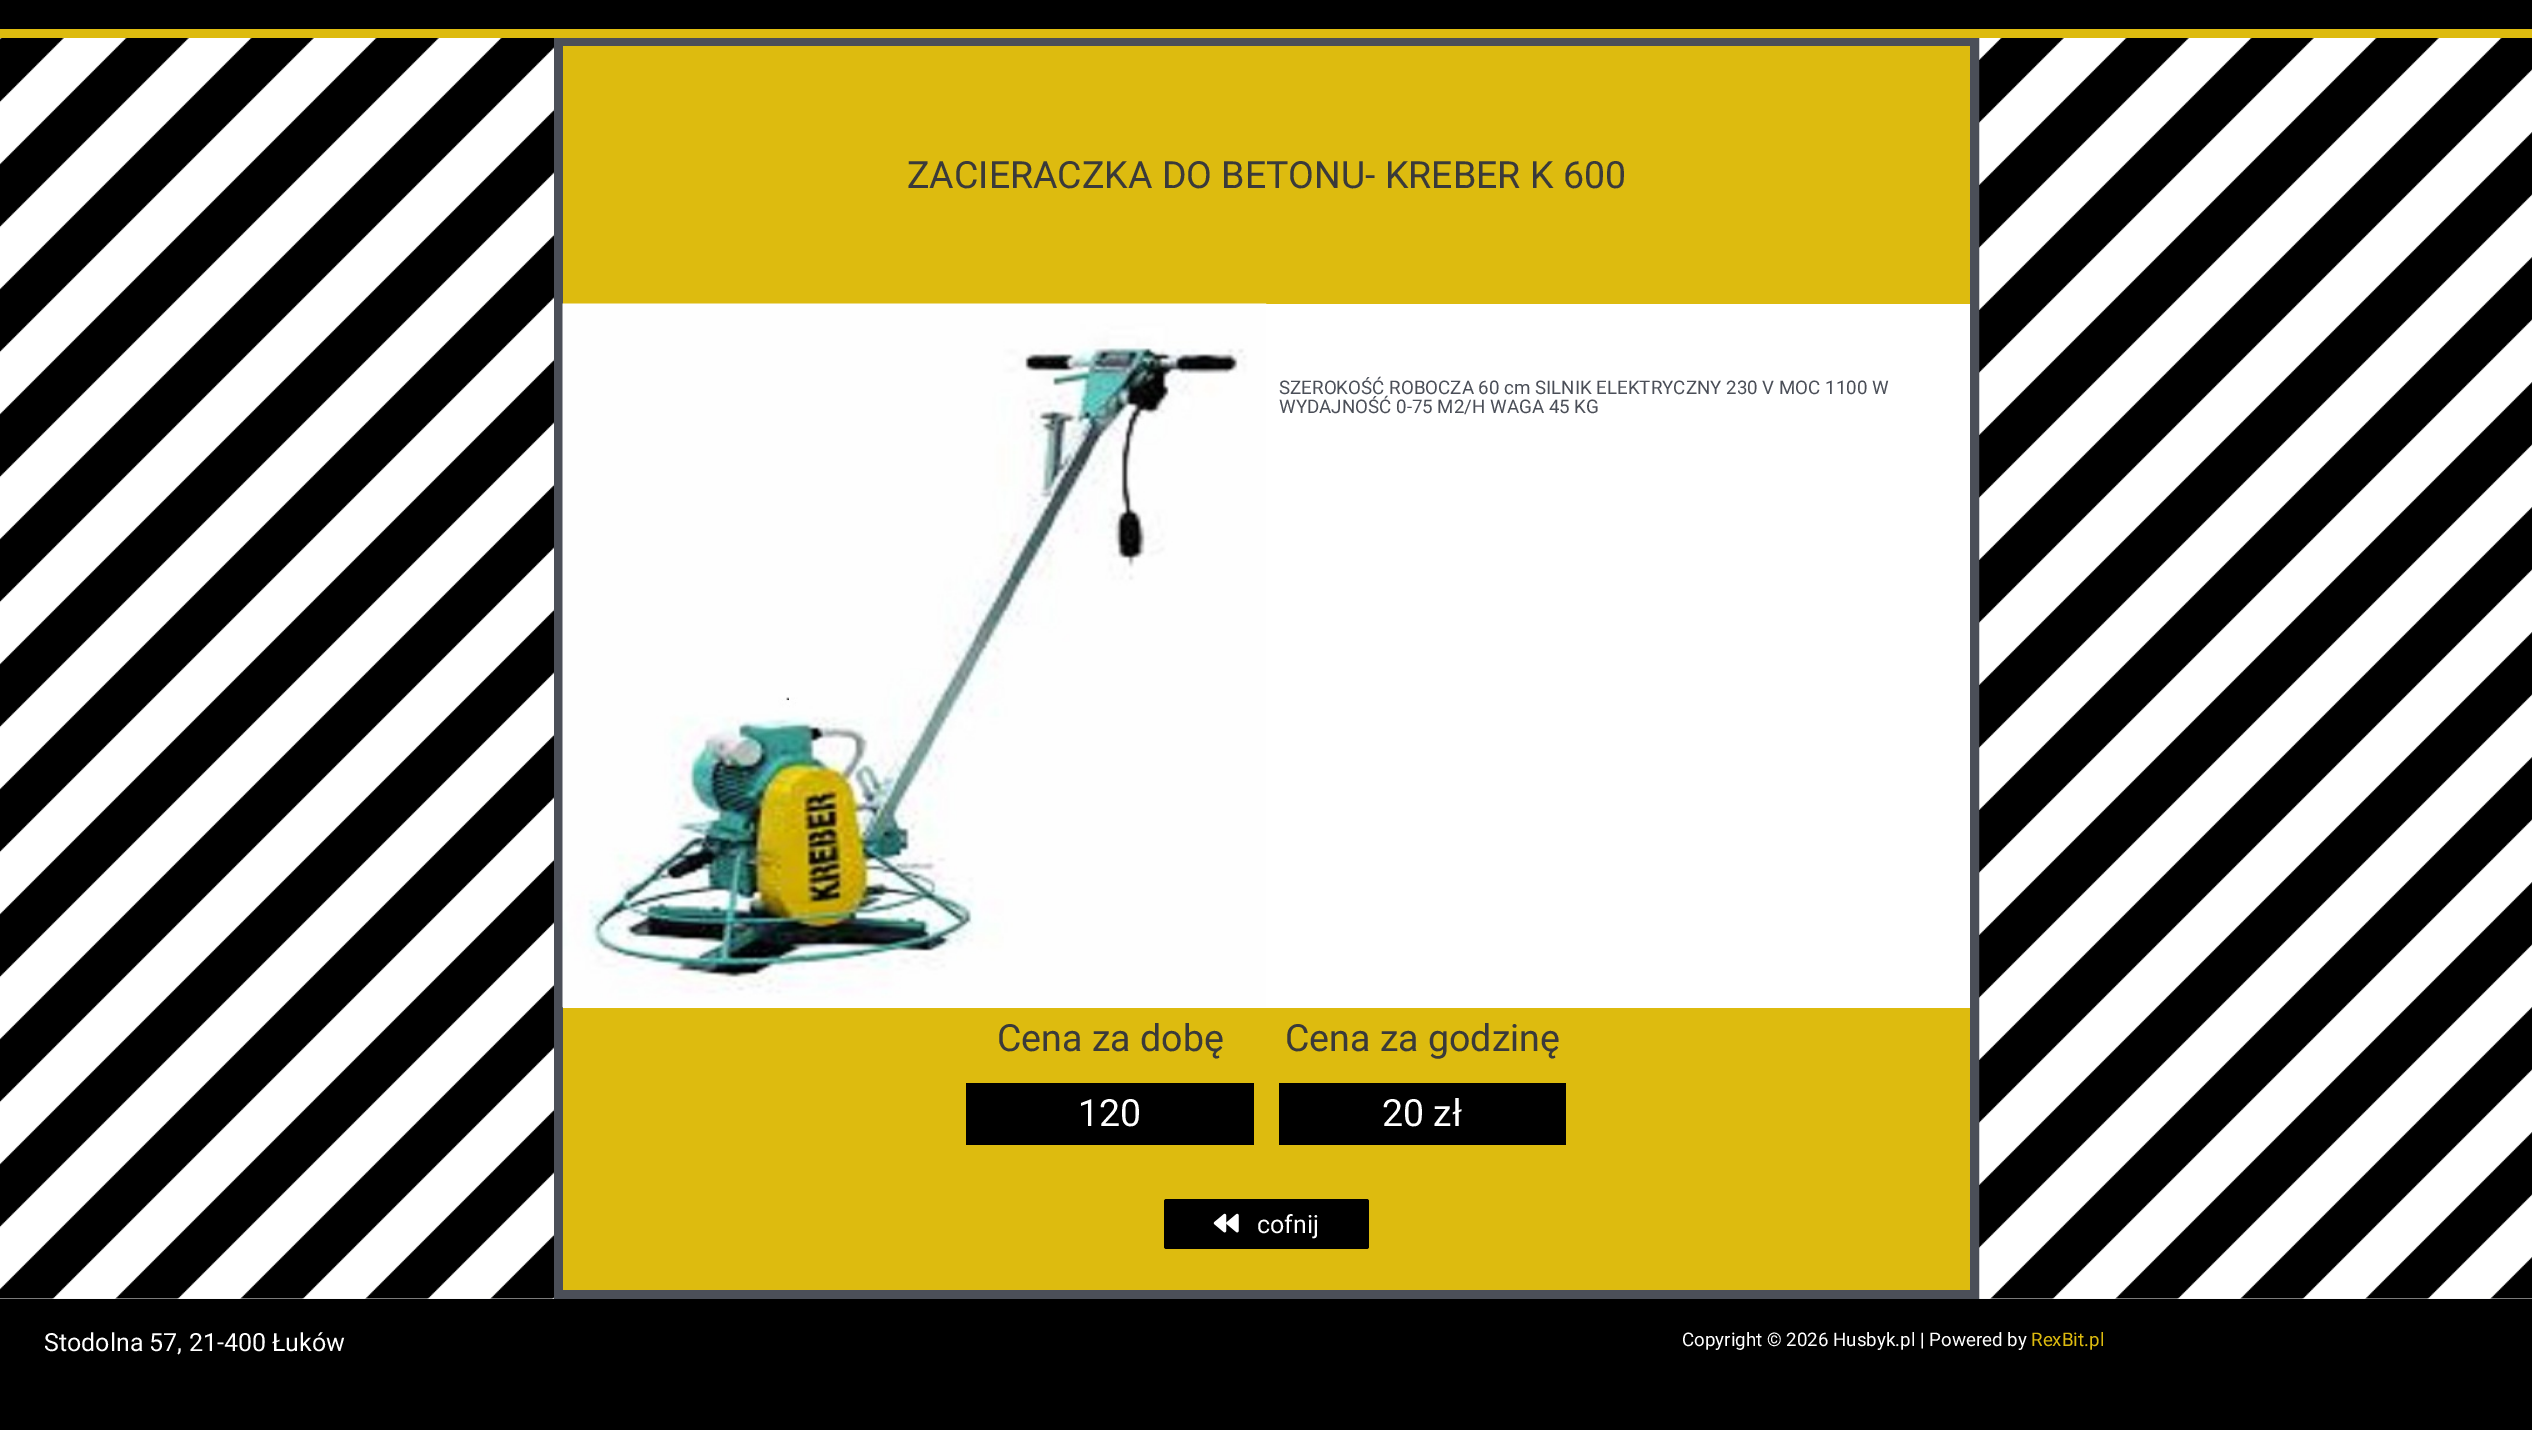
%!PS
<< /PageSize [2532 1430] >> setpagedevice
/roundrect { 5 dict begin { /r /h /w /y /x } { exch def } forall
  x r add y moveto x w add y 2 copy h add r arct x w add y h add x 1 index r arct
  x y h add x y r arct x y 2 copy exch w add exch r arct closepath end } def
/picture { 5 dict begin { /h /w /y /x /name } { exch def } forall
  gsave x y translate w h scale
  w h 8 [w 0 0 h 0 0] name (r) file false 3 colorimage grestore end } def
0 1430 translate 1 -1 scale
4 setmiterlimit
0.961 setgray
0 0 2532 1430 rectfill
0 setgray
0 0 2532 29 rectfill
0.867 0.733 0.059 setrgbcolor
0 29 2532 9 rectfill
(img1.rgb) 0 38 2532 1261 picture
1 setgray
563 304 1407 704 rectfill
0.294 0.31 0.345 setrgbcolor
9 setlinewidth
558.5 42.5 1416 1252 rectstroke
0.867 0.733 0.059 setrgbcolor
563 46 1407 258 rectfill
/Roboto-Regular [37.5 0 0 -37.5 0 0] selectfont
0.227 setgray
907 188 moveto (ZACIERACZKA DO BETONU- KREBER K 600) show
(img2.rgb) 562 303 705 705 picture
/Roboto-Regular [18.75 0 0 -18.75 0 0] selectfont
0.294 0.31 0.345 setrgbcolor
1279 394 moveto (SZEROKOŚĆ ROBOCZA 60 cm SILNIK ELEKTRYCZNY 230 V MOC 1100 W) show
1279 413 moveto (WYDAJNOŚĆ 0-75 M2/H WAGA 45 KG) show
0.867 0.733 0.059 setrgbcolor
563 1008 1407 282 rectfill
/Roboto-Regular [37.5 0 0 -37.5 0 0] selectfont
0.227 setgray
997 1051 moveto (Cena za dobę) show
0 setgray
966 1083 288 62 rectfill
1 setgray
1078 1126 moveto (120) show
0.227 setgray
1285 1051 moveto (Cena za godzinę) show
0 setgray
1279 1083 287 62 rectfill
1 setgray
1382 1126 moveto (20 zł) show
0 setgray
1164 1199 205 50 2.5 roundrect fill
(img3.rgb) 1213 1213 26 20 picture
/Roboto-Regular [25 0 0 -25 0 0] selectfont
1 setgray
1257 1233 moveto (cofnij) show
0 setgray
0 1299 2532 131 rectfill
1 setgray
44 1351 moveto (Stodolna 57, 21-400 Łuków) show
/Roboto-Regular [18.75 0 0 -18.75 0 0] selectfont
1682 1346 moveto (Copyright © 2026 Husbyk.pl | Powered by) show
0.867 0.733 0.059 setrgbcolor
2031 1346 moveto (RexBit.pl) show
showpage
